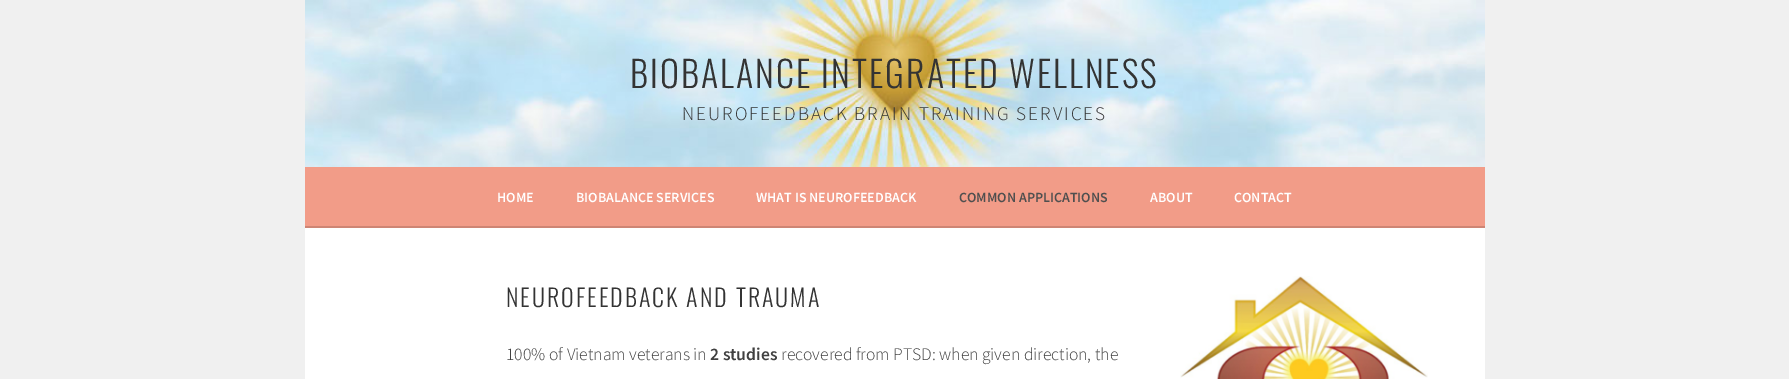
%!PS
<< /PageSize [1789 379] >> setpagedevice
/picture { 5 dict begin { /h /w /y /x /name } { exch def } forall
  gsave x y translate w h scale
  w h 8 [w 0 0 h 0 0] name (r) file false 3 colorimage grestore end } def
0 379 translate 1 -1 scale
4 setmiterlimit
0.941 setgray
0 0 1789 379 rectfill
(img1.rgb) 305 0 1180 167 picture
/Oswald-Light [36 0 0 -36 0 0] selectfont
0.2 setgray
630 88 moveto 2 0 (BIOBALANCE INTEGRATED WELLNESS) ashow
/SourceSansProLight-Light [19.2 0 0 -19.2 0 0] selectfont
682 120 moveto 2 0 (NEUROFEEDBACK BRAIN TRAINING SERVICES) ashow
0.949 0.612 0.533 setrgbcolor
305 167 1180 59 rectfill
0.808 0.522 0.455 setrgbcolor
305 226 1180 2 rectfill
/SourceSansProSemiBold-SemiBold [14 0 0 -14 0 0] selectfont
1 setgray
497 202 moveto (HOME) show
576 202 moveto (BIOBALANCE SERVICES) show
756 202 moveto (WHAT IS NEUROFEEDBACK) show
0.31 setgray
959 202 moveto (COMMON APPLICATIONS) show
1 setgray
1150 202 moveto (ABOUT) show
1234 202 moveto (CONTACT) show
305 228 1180 151 rectfill
/Oswald-Light [24 0 0 -24 0 0] selectfont
0.2 setgray
506 307 moveto 2 0 (NEUROFEEDBACK AND TRAUMA) ashow
/SourceSansProLight-Light [17.6 0 0 -17.6 0 0] selectfont
0.251 setgray
506 360 moveto (100% of Vietnam veterans in) show
/SourceSansProSemiBold-SemiBold [17.6 0 0 -17.6 0 0] selectfont
710 360 moveto (2 studies) show
/SourceSansProLight-Light [17.6 0 0 -17.6 0 0] selectfont
781 360 moveto (recovered from PTSD: when given direction, the) show
(img2.rgb) 1180 276 248 103 picture
showpage
